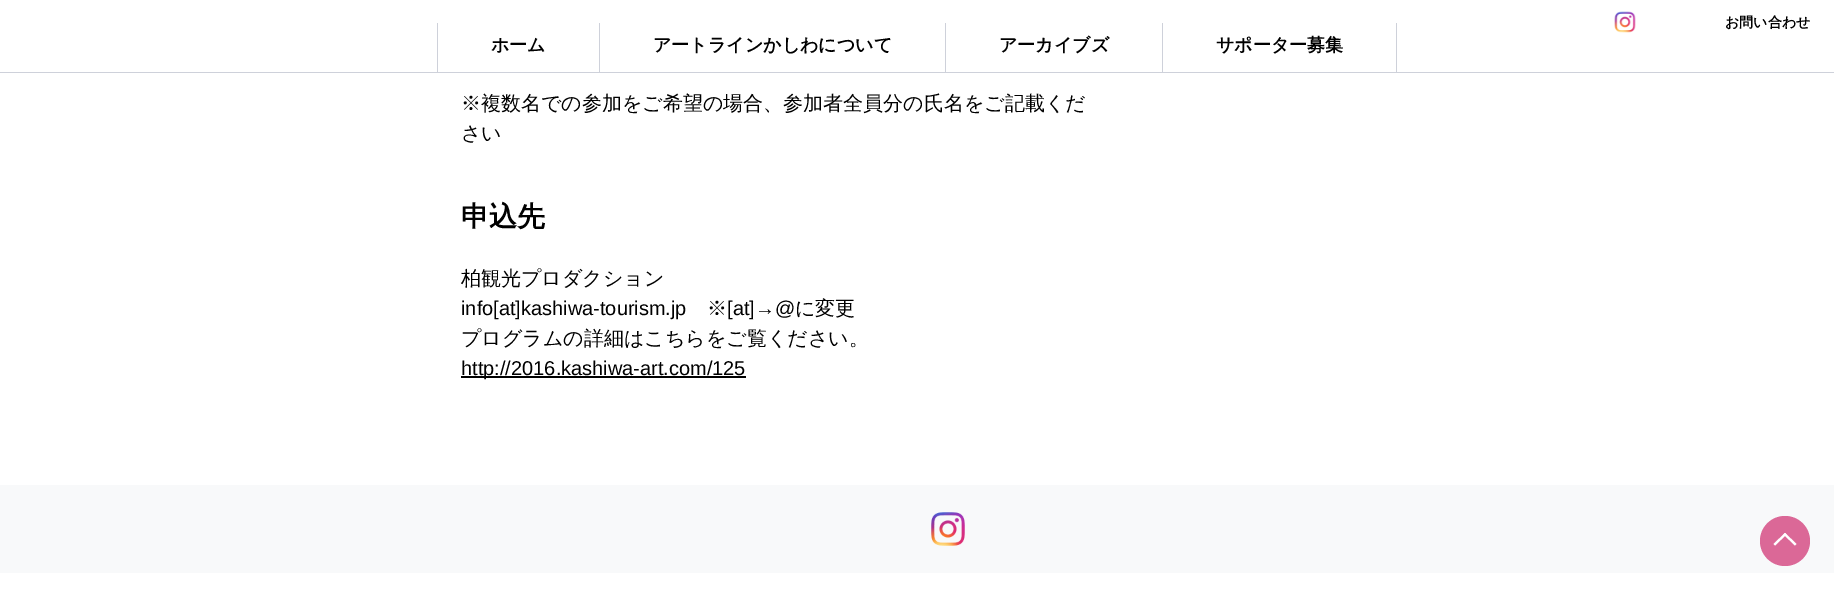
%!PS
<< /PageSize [1834 590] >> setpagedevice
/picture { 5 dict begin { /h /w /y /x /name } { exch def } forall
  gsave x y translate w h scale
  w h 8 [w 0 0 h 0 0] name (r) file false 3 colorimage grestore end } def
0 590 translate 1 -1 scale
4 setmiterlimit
1 setgray
0 0 1834 590 rectfill
0.808 0.82 0.855 setrgbcolor
0 72 1834 1 rectfill
(img1.rgb) 1614 11 22 22 picture
/WenQuanYiZenHei-Bold [14 0 0 -14 0 0] selectfont
0 setgray
1725 27 moveto (お問い合わせ) show
0.808 0.82 0.855 setrgbcolor
599 23 1 49 rectfill
437 23 1 49 rectfill
/WenQuanYiZenHei-Bold [18 0 0 -18 0 0] selectfont
0 setgray
491 51 moveto (ホーム) show
0.808 0.82 0.855 setrgbcolor
945 23 1 49 rectfill
0 setgray
653 51 moveto (アートラインかしわについて) show
0.808 0.82 0.855 setrgbcolor
1162 23 1 49 rectfill
0 setgray
999 51 moveto (アーカイブズ) show
0.808 0.82 0.855 setrgbcolor
1396 23 1 49 rectfill
0 setgray
1216 51 moveto (サポーター募集) show
/WenQuanYiZenHei-Medium [20 0 0 -20 0 0] selectfont
461 110 moveto (※複数名での参加をご希望の場合、参加者全員分の氏名をご記載くだ) show
461 140 moveto (さい) show
/WenQuanYiZenHei-Bold [28 0 0 -28 0 0] selectfont
461 226 moveto (申込先) show
/WenQuanYiZenHei-Medium [20 0 0 -20 0 0] selectfont
461 285 moveto (柏観光プロダクション) show
/LiberationSans-Regular [20 0 0 -20 0 0] selectfont
461 315 moveto (info[at]kashiwa-tourism.jp) show
/WenQuanYiZenHei-Medium [20 0 0 -20 0 0] selectfont
707 315 moveto (※) show
/LiberationSans-Regular [20 0 0 -20 0 0] selectfont
727 315 moveto ([at]→@) show
/WenQuanYiZenHei-Medium [20 0 0 -20 0 0] selectfont
795 315 moveto (に変更) show
461 345 moveto (プログラムの詳細はこちらをご覧ください。) show
461 376 285 2 rectfill
/LiberationSans-Regular [20 0 0 -20 0 0] selectfont
461 375 moveto (http://2016.kashiwa-art.com/125) show
0.973 0.976 0.98 setrgbcolor
0 485 1834 88 rectfill
(img2.rgb) 931 512 34 34 picture
0.859 0.408 0.592 setrgbcolor
newpath 1785 541 25 0 360 arc closepath fill
1 setgray
newpath 1773.5 544 moveto 1785 533 lineto 1786.5 534.5 lineto 1775 545.5 lineto closepath fill
newpath 1783.5 534.5 moveto 1785 533 lineto 1796.5 544 lineto 1795 545.5 lineto closepath fill
showpage
